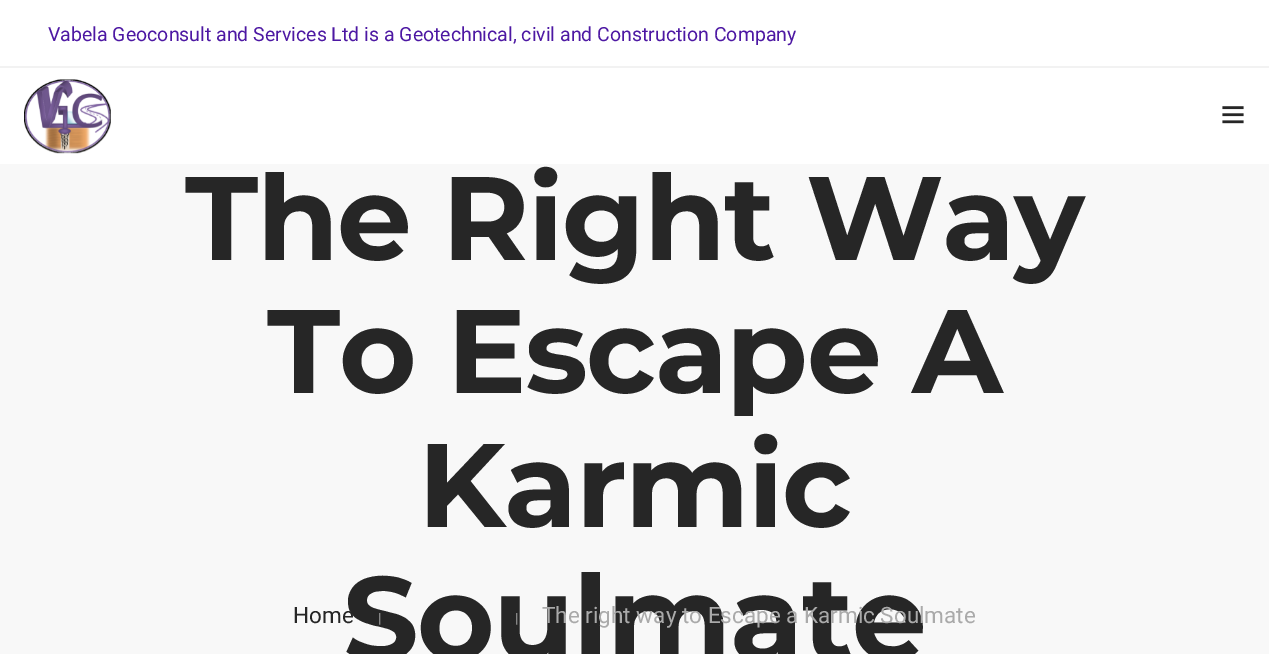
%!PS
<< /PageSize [1269 654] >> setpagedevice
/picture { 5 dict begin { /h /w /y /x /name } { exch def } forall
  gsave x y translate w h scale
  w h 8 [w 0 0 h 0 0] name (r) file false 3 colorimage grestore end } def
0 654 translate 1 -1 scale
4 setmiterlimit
1 setgray
0 0 1269 654 rectfill
0.949 setgray
0 66 1269 2 rectfill
/Roboto-Regular [19.5 0 0 -19.5 0 0] selectfont
0.302 0.094 0.639 setrgbcolor
48 41 moveto (Vabela Geoconsult and Services Ltd is a Geotechnical, civil and Construction Company) show
(img1.rgb) 24 79 87 75 picture
(img2.rgb) 1222 106 22 18 picture
0.973 setgray
0 164 1269 490 rectfill
/Montserrat-Bold [118.5 0 0 -118.5 0 0] selectfont
0.149 setgray
185 260 moveto -1.5 0 (The Right Way) ashow
267 393 moveto -1.5 0 (To Escape A) ashow
418 527 moveto -1.5 0 (Karmic) ashow
343 660 moveto -1.5 0 (Soulmate) ashow
/Roboto-Regular [22.5 0 0 -22.5 0 0] selectfont
293 623 moveto (Home) show
/Roboto-Regular [14 0 0 -14 0 0] selectfont
0.667 setgray
378 623 moveto (|) show
515 623 moveto (|) show
/Roboto-Regular [22.5 0 0 -22.5 0 0] selectfont
542 623 moveto (The right way to Escape a Karmic Soulmate) show
showpage
